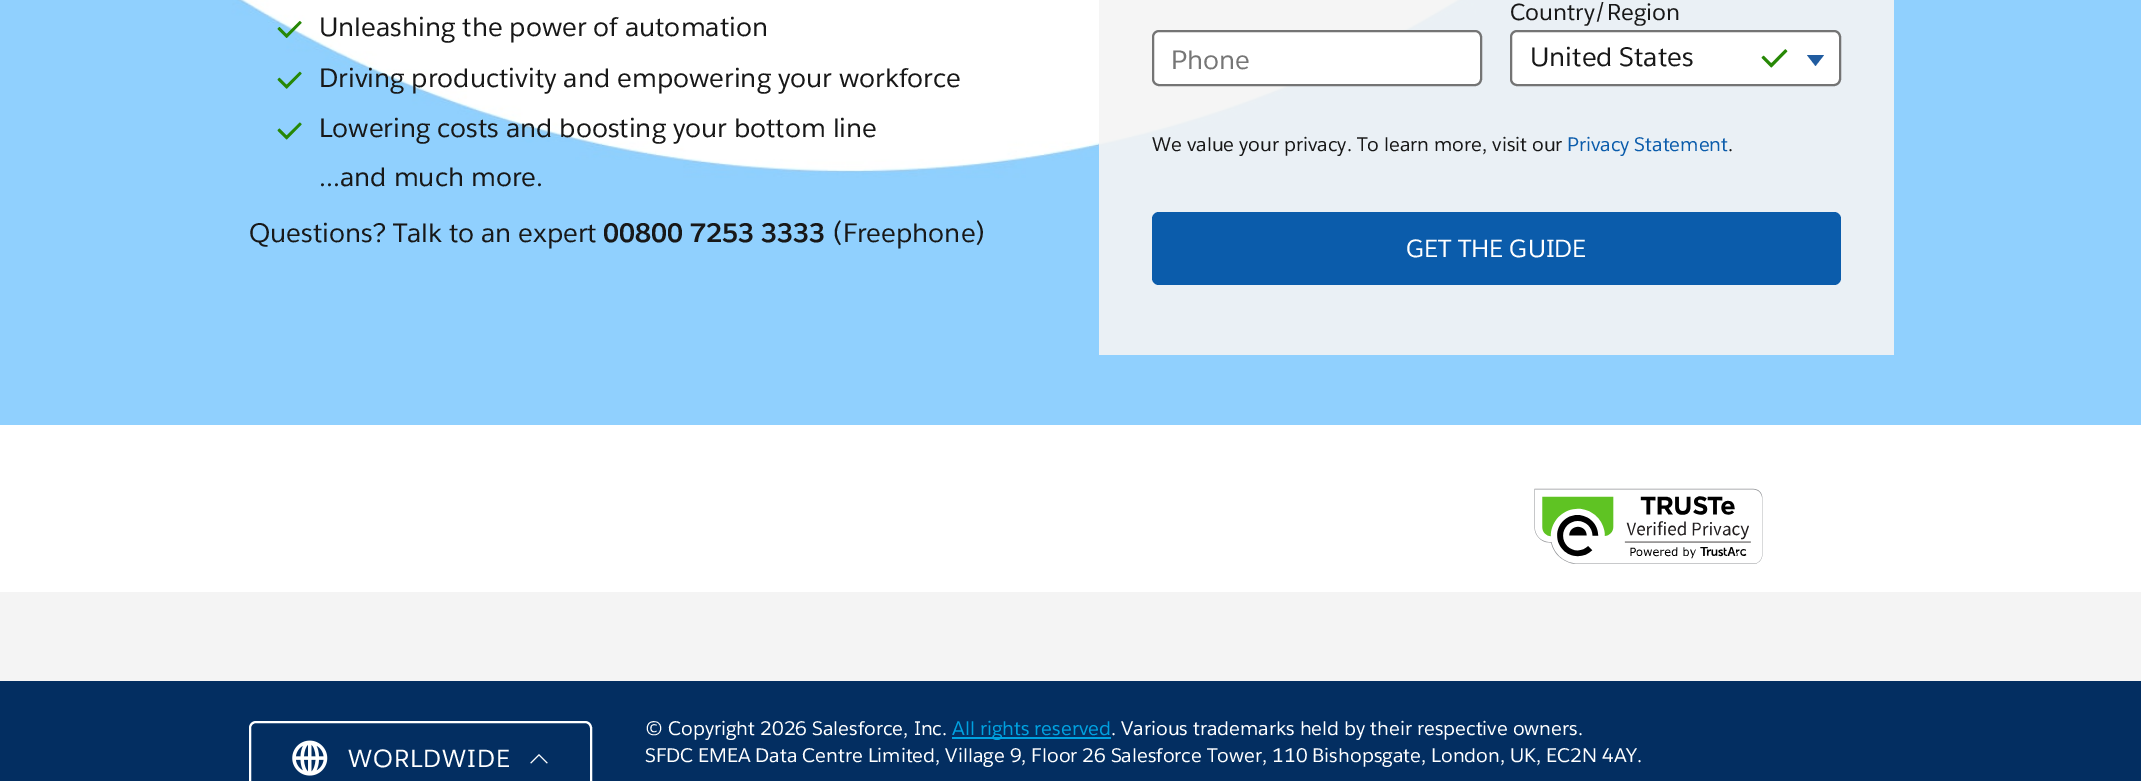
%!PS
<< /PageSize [2141 781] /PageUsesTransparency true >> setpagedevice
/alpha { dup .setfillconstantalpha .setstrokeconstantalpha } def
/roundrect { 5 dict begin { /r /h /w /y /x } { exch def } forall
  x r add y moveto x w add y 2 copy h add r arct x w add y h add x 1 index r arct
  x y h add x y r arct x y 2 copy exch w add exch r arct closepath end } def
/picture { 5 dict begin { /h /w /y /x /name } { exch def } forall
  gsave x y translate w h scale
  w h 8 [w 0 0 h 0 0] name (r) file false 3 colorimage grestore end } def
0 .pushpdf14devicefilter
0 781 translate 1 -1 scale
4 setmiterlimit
0.957 setgray
0 0 2141 781 rectfill
(img1.rgb) 0 0 2141 425 picture
(img2.rgb) 277 21 25 17 picture
/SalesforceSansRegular-Regular [26.25 0 0 -26.25 0 0] selectfont
0.094 setgray
319 36 moveto (Unleashing the power of automation) show
(img3.rgb) 277 71 25 18 picture
319 87 moveto (Driving productivity and empowering your workforce) show
(img4.rgb) 277 122 25 18 picture
319 137 moveto (Lowering costs and boosting your bottom line) show
319 186 moveto (...and much more.) show
249 242 moveto (Questions? Talk to an expert) show
/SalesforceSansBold-Bold [26.25 0 0 -26.25 0 0] selectfont
603 242 moveto (00800 7253 3333) show
/SalesforceSansRegular-Regular [26.25 0 0 -26.25 0 0] selectfont
833 242 moveto (\(Freephone\)) show
0.9 alpha
0.957 setgray
1099 0 795 355 rectfill
1 alpha
1 setgray
1153 31 328 54 6 roundrect gsave fill grestore
0.455 setgray
2 setlinewidth
stroke
0.463 setgray
1171 69 moveto (Phone) show
/SalesforceSansRegular-Regular [22.75 0 0 -22.75 0 0] selectfont
0.094 setgray
1510 20 moveto (Country/Region) show
1 setgray
1511 31 329 54 6 roundrect gsave fill grestore
0.455 setgray
stroke
/SalesforceSansRegular-Regular [26.25 0 0 -26.25 0 0] selectfont
0.094 setgray
1530 66 moveto (United States) show
(img5.rgb) 1761 49 27 19 picture
0.129 0.361 0.627 setrgbcolor
newpath 1807 55 moveto 1824 55 lineto 1815.5 66 lineto closepath fill
/SalesforceSansRegular-Regular [19.25 0 0 -19.25 0 0] selectfont
0.094 setgray
1152 151 moveto (We value your privacy. To learn more, visit our) show
0.043 0.361 0.671 setrgbcolor
1567 151 moveto (Privacy Statement) show
0.094 setgray
1728 151 moveto (.) show
0.043 0.361 0.671 setrgbcolor
1152 212 689 73 7 roundrect fill
/SalesforceSansRegular-Regular [24.5 0 0 -24.5 0 0] selectfont
1 setgray
1406 257 moveto (GET THE GUIDE) show
0 425 2141 167 rectfill
(img6.rgb) 1534 488 229 76 picture
0.012 0.18 0.38 setrgbcolor
0 681 2141 100 rectfill
1 setgray
250 722 341 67 6 roundrect stroke
(img7.rgb) 292 740 36 36 picture
348 767 moveto 0.9 0 (WORLDWIDE) ashow
(img8.rgb) 530 754 18 10 picture
/SalesforceSansRegular-Regular [19.25 0 0 -19.25 0 0] selectfont
645 735 moveto (© Copyright 2026 Salesforce, Inc.) show
0 0.631 0.878 setrgbcolor
952 737 159 2 rectfill
952 735 moveto (All rights reserved) show
1 setgray
1111 735 moveto (. Various trademarks held by their respective owners.) show
645 762 moveto (SFDC EMEA Data Centre Limited, Village 9, Floor 26 Salesforce Tower, 110 Bishopsgate, London, UK, EC2N 4AY.) show
.poppdf14devicefilter showpage
